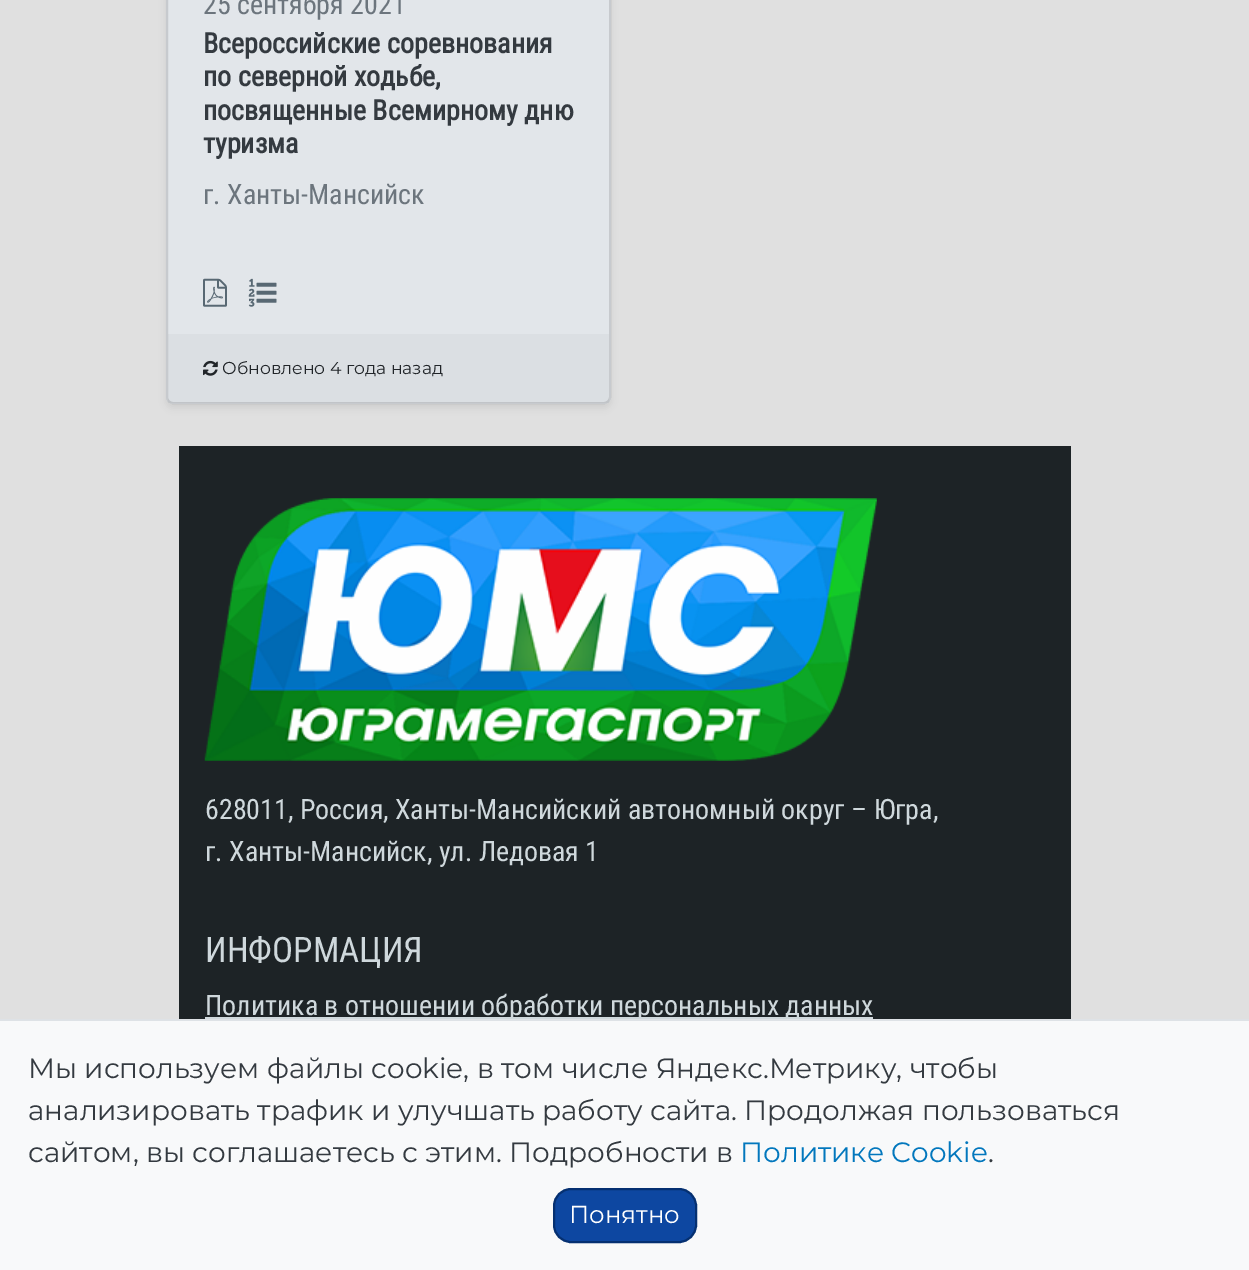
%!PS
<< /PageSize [1249 1270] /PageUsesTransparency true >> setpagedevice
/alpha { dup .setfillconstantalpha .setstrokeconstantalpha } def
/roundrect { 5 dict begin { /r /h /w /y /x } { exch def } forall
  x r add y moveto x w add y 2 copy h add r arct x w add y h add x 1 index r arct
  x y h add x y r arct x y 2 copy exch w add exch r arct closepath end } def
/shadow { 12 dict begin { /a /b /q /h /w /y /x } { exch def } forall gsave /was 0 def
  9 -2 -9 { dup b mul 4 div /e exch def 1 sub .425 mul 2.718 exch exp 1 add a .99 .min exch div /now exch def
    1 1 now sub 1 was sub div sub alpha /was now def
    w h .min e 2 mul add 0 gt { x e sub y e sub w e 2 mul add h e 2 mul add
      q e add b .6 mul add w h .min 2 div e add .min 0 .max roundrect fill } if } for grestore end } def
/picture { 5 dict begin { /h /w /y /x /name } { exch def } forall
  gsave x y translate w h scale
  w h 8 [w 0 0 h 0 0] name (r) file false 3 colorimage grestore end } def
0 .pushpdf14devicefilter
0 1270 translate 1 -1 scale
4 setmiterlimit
0.878 setgray
0 0 1249 1270 rectfill
0 setgray
166 -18 445 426 7 3.5 0.07 shadow
0.886 0.902 0.918 setrgbcolor
166 -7 445 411 7 roundrect fill
0.12 alpha
0 setgray
2 setlinewidth
167 -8 443 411 6 roundrect stroke
/RobotoCondensed-Regular [28 0 0 -28 0 0] selectfont
1 alpha
0.424 0.459 0.49 setrgbcolor
203 14 moveto (25 сентября 2021) show
/RobotoCondensed-Bold [28 0 0 -28 0 0] selectfont
0.204 0.227 0.251 setrgbcolor
203 53 moveto (Всероссийские соревнования) show
203 86 moveto (по северной ходьбе,) show
203 120 moveto (посвященные Всемирному дню) show
203 153 moveto (туризма) show
/RobotoCondensed-Regular [28 0 0 -28 0 0] selectfont
0.424 0.459 0.49 setrgbcolor
203 204 moveto (г. Ханты-Мансийск) show
(img1.rgb) 203 278 24 29 picture
(img2.rgb) 248 278 29 29 picture
0.03 alpha
0 setgray
168 334 441 69 rectfill
1 alpha
(img3.rgb) 203 360 15 16 picture
/Montserrat-Regular [17.25 0 0 -17.25 0 0] selectfont
0.129 0.145 0.161 setrgbcolor
222 374 moveto (Обновлено 4 года назад) show
0.114 0.137 0.149 setrgbcolor
179 446 892 573 rectfill
(img4.rgb) 204 498 673 263 picture
/RobotoCondensed-Regular [28 0 0 -28 0 0] selectfont
0.812 0.847 0.863 setrgbcolor
205 819 moveto (628011, Россия, Ханты-Мансийский автономный округ – Югра,) show
205 861 moveto (г. Ханты-Мансийск, ул. Ледовая 1) show
/RobotoCondensed-Regular [35 0 0 -35 0 0] selectfont
205 962 moveto (ИНФОРМАЦИЯ) show
205 1017 668 2 rectfill
/RobotoCondensed-Regular [28 0 0 -28 0 0] selectfont
205 1015 moveto (Политика в отношении обработки персональных данных) show
0.973 0.976 0.98 setrgbcolor
0 1021 1249 249 rectfill
0.871 0.886 0.902 setrgbcolor
0 1019 1249 2 rectfill
/Montserrat-Regular [28 0 0 -28 0 0] selectfont
0.204 0.227 0.251 setrgbcolor
28 1078 moveto (Мы используем файлы cookie, в том числе Яндекс.Метрику, чтобы) show
28 1120 moveto (анализировать трафик и улучшать работу сайта. Продолжая пользоваться) show
28 1162 moveto (сайтом, вы соглашаетесь с этим. Подробности в) show
0.008 0.467 0.741 setrgbcolor
740 1162 moveto (Политике Cookie) show
0.204 0.227 0.251 setrgbcolor
988 1162 moveto (.) show
0.051 0.278 0.631 setrgbcolor
554 1189 142 53 17 roundrect gsave fill grestore
0.02 0.188 0.443 setrgbcolor
stroke
/Montserrat-Regular [24.5 0 0 -24.5 0 0] selectfont
1 setgray
569 1223 moveto (Понятно) show
.poppdf14devicefilter showpage
